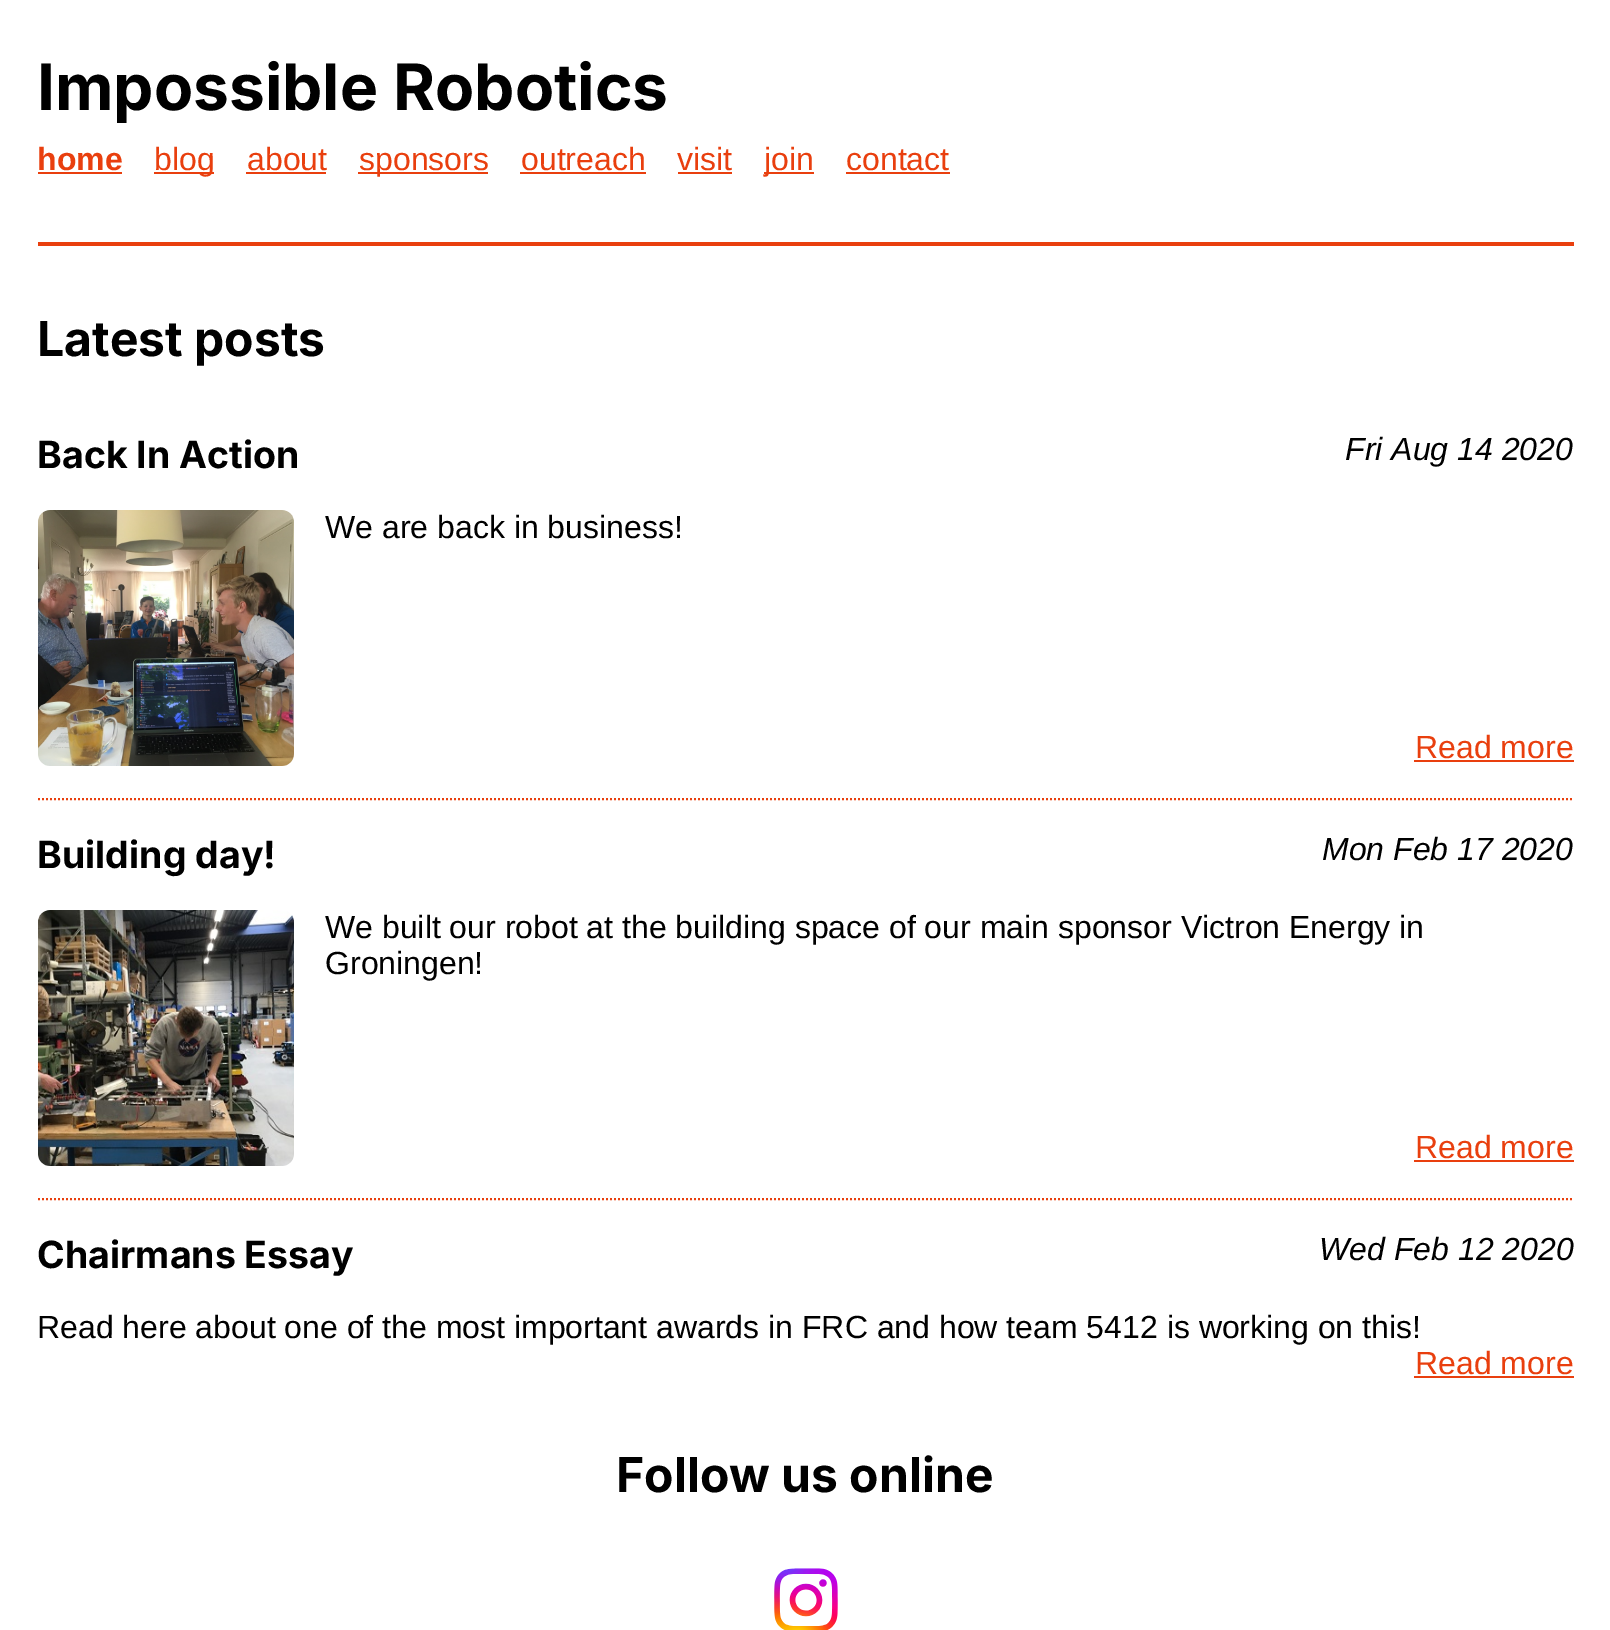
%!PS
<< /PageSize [1610 1630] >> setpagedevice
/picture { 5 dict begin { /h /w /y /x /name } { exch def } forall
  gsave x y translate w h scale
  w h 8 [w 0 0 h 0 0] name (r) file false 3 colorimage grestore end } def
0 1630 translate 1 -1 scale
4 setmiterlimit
1 setgray
0 0 1610 1630 rectfill
0.914 0.247 0.055 setrgbcolor
38 242 1536 4 rectfill
/Inter-Bold [64 0 0 -64 0 0] selectfont
0 setgray
37 110 moveto (Impossible Robotics) show
/LiberationSans-Bold [32 0 0 -32 0 0] selectfont
0.914 0.247 0.055 setrgbcolor
37 170 moveto (home) show
38 172 84 2 rectfill
154 172 60 2 rectfill
/LiberationSans-Regular [32 0 0 -32 0 0] selectfont
154 170 moveto (blog) show
247 170 moveto (about) show
246 172 80 2 rectfill
358 172 130 2 rectfill
359 170 moveto (sponsors) show
521 170 moveto (outreach) show
520 172 126 2 rectfill
677 170 moveto (visit) show
678 172 54 2 rectfill
764 172 50 2 rectfill
764 170 moveto (join) show
846 170 moveto (contact) show
846 172 104 2 rectfill
/Inter-Bold [48 0 0 -48 0 0] selectfont
0 setgray
37 356 moveto (Latest posts) show
0.914 0.247 0.055 setrgbcolor
2 setlinewidth
[2 2] 0 setdash
newpath 38 799 moveto 1574 799 lineto stroke
/Inter-Bold [37.5 0 0 -37.5 0 0] selectfont
0 setgray
37 468 moveto (Back In Action) show
/LiberationSans-Italic [32 0 0 -32 0 0] selectfont
1345 460 moveto (Fri Aug 14 2020) show
(img1.rgb) 38 510 256 256 picture
/LiberationSans-Regular [32 0 0 -32 0 0] selectfont
325 538 moveto (We are back in business!) show
0.914 0.247 0.055 setrgbcolor
1415 758 moveto (Read more) show
1414 760 160 2 rectfill
newpath 38 1199 moveto 1574 1199 lineto stroke
/Inter-Bold [37.5 0 0 -37.5 0 0] selectfont
0 setgray
37 868 moveto (Building day!) show
/LiberationSans-Italic [32 0 0 -32 0 0] selectfont
1322 860 moveto (Mon Feb 17 2020) show
(img2.rgb) 38 910 256 256 picture
/LiberationSans-Regular [32 0 0 -32 0 0] selectfont
325 938 moveto (We built our robot at the building space of our main sponsor Victron Energy in) show
325 974 moveto (Groningen!) show
0.914 0.247 0.055 setrgbcolor
1415 1158 moveto (Read more) show
1414 1160 160 2 rectfill
/Inter-Bold [37.5 0 0 -37.5 0 0] selectfont
0 setgray
37 1268 moveto (Chairmans Essay) show
/LiberationSans-Italic [32 0 0 -32 0 0] selectfont
1319 1260 moveto (Wed Feb 12 2020) show
/LiberationSans-Regular [32 0 0 -32 0 0] selectfont
37 1338 moveto (Read here about one of the most important awards in FRC and how team 5412 is working on this!) show
0.914 0.247 0.055 setrgbcolor
1415 1374 moveto (Read more) show
1414 1376 160 2 rectfill
/Inter-Bold [48 0 0 -48 0 0] selectfont
0 setgray
616 1492 moveto (Follow us online) show
(img3.rgb) 774 1568 64 62 picture
showpage
